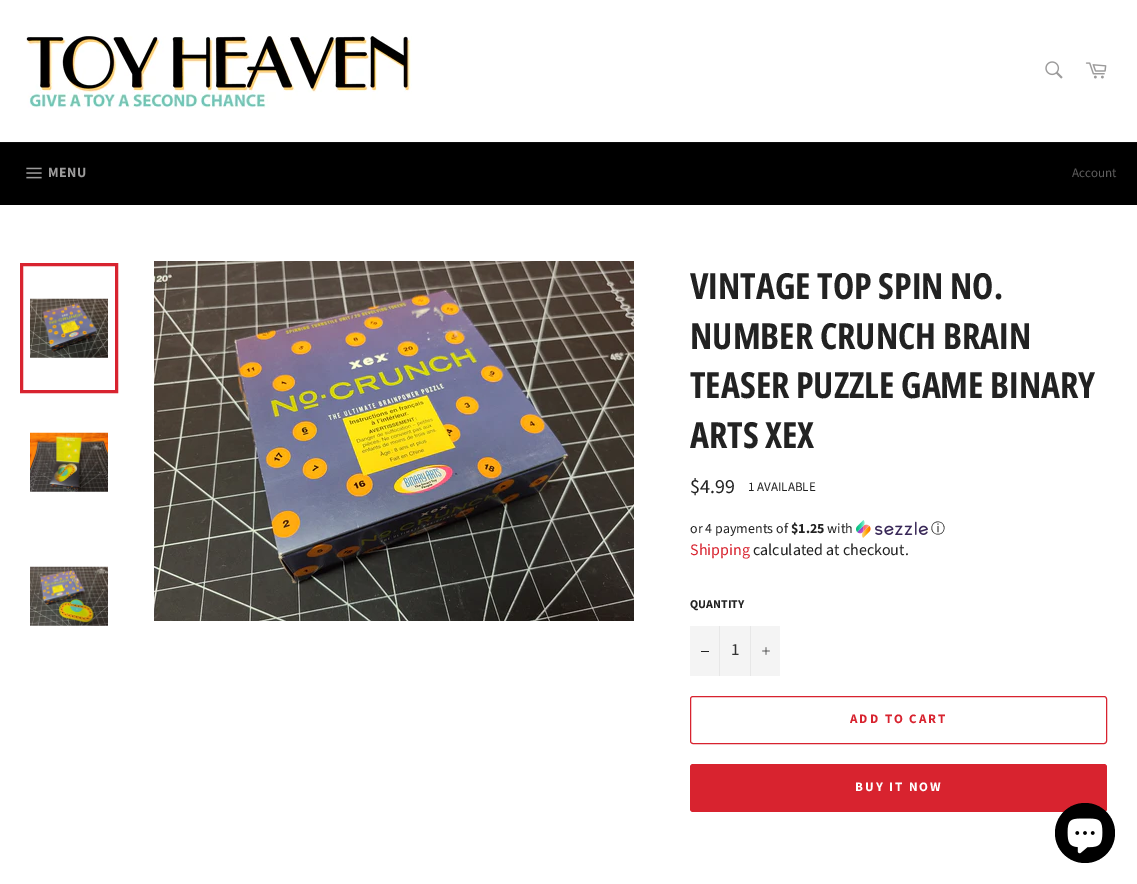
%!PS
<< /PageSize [1137 884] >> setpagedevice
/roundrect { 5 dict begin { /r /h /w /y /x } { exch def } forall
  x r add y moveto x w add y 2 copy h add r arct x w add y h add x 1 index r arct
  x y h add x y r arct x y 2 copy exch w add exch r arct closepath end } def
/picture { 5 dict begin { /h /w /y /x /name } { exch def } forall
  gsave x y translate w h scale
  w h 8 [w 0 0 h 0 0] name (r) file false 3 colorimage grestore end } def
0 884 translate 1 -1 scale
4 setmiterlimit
1 setgray
0 0 1137 884 rectfill
(img1.rgb) 26 36 386 72 picture
(img2.rgb) 1045 61 18 18 picture
(img3.rgb) 1085 62 22 17 picture
0 setgray
0 143 1137 62 rectfill
0.051 setgray
0 142 1137 1 rectfill
(img4.rgb) 26 167 16 12 picture
/SourceSansPro-Bold [14 0 0 -14 0 0] selectfont
0.612 0.608 0.608 setrgbcolor
48 177 moveto 0.5 0 (MENU) ashow
/SourceSansPro-Regular [13 0 0 -13 0 0] selectfont
0.369 0.365 0.365 setrgbcolor
1072 177 moveto (Account) show
(img5.rgb) 30 298 78 60 picture
0.847 0.137 0.184 setrgbcolor
3 setlinewidth
21.5 264.5 95 127 rectstroke
(img6.rgb) 30 432 78 60 picture
(img7.rgb) 30 566 78 60 picture
(img8.rgb) 154 261 480 360 picture
/OpenSansCondensed-Bold [36 0 0 -36 0 0] selectfont
0.133 setgray
690 299 moveto (VINTAGE TOP SPIN NO.) show
690 349 moveto (NUMBER CRUNCH BRAIN) show
690 398 moveto (TEASER PUZZLE GAME BINARY) show
690 448 moveto (ARTS XEX) show
/SourceSansPro-Regular [20 0 0 -20 0 0] selectfont
690 493 moveto ($4.99) show
/SourceSansPro-Regular [13 0 0 -13 0 0] selectfont
748 491 moveto (1 AVAILABLE) show
/SourceSansPro-Regular [14 0 0 -14 0 0] selectfont
690 533 moveto (or 4 payments of) show
/SourceSansPro-Bold [14 0 0 -14 0 0] selectfont
791 533 moveto ($1.25) show
/SourceSansPro-Regular [14 0 0 -14 0 0] selectfont
827 533 moveto (with) show
(img9.rgb) 856 520 72 18 picture
/WenQuanYiZenHei-Medium [14 0 0 -14 0 0] selectfont
931 533 moveto (ⓘ) show
/SourceSansPro-Regular [16 0 0 -16 0 0] selectfont
0.847 0.137 0.184 setrgbcolor
690 555 moveto (Shipping) show
0.133 setgray
753 555 moveto (calculated at checkout.) show
/SourceSansPro-Bold [12 0 0 -12 0 0] selectfont
690 608 moveto (QUANTITY) show
0.957 setgray
690 626 90 50 rectfill
0.906 setgray
719 626 1 50 rectfill
0.133 setgray
701 651 8 1 rectfill
/SourceSansPro-Regular [17 0 0 -17 0 0] selectfont
0.2 setgray
731 655 moveto (1) show
0.906 setgray
750 626 1 50 rectfill
(img10.rgb) 762 647 8 8 picture
0.847 0.137 0.184 setrgbcolor
1 setlinewidth
690.5 696.5 416 47 2.5 roundrect stroke
/SourceSansPro-Bold [13 0 0 -13 0 0] selectfont
850 723 moveto 2 0 (ADD TO CART) ashow
690 764 417 48 3 roundrect fill
1 setgray
855 791 moveto 2 0 (BUY IT NOW) ashow
0 setgray
newpath 1085 833 30 0 360 arc closepath fill
(img11.rgb) 1067 818 36 36 picture
showpage
